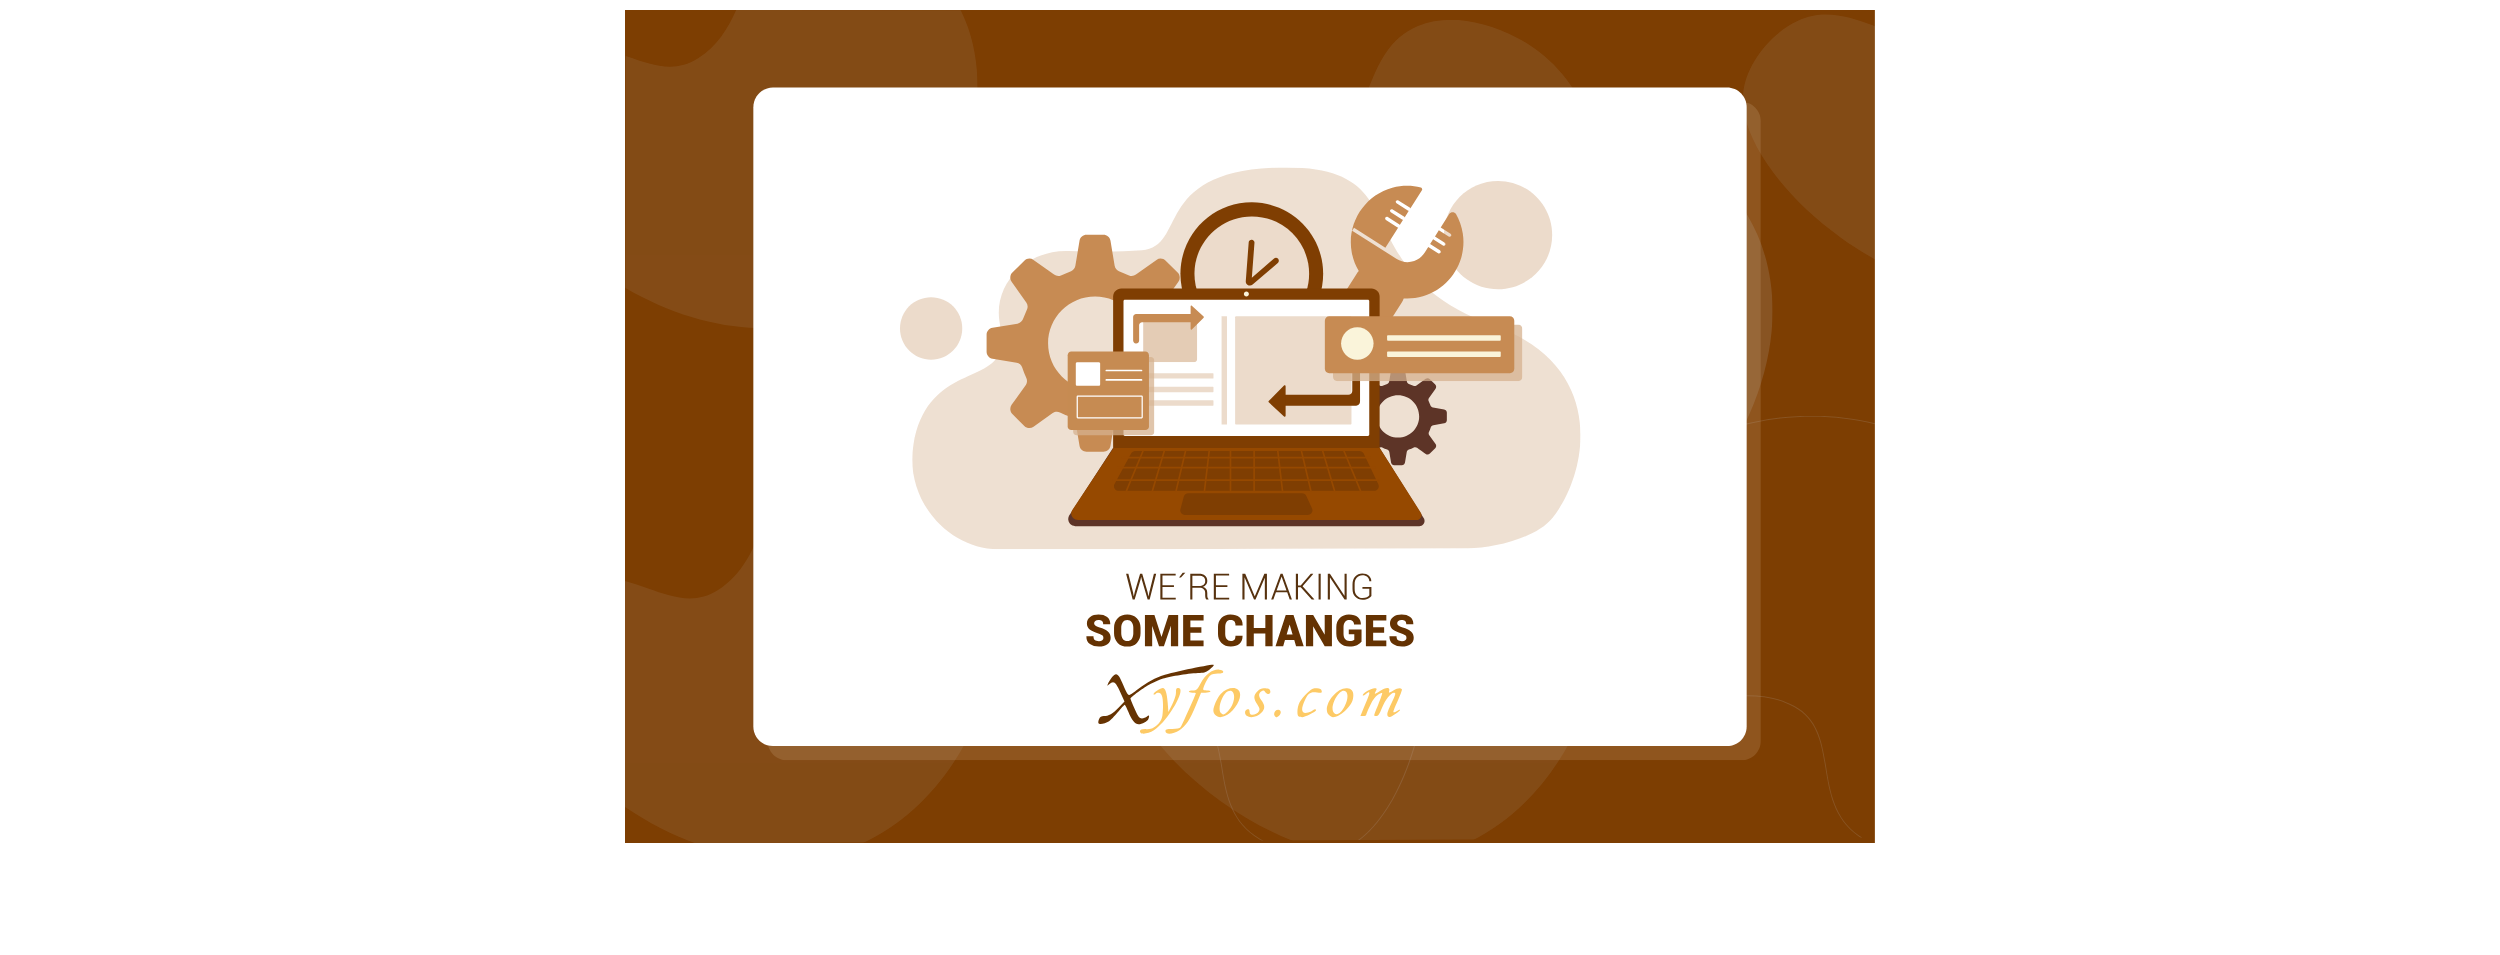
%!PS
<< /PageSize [2500 955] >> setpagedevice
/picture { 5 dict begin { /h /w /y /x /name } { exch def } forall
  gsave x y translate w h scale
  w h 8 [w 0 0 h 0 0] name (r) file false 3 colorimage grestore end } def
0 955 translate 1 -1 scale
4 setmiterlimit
1 setgray
0 0 2500 955 rectfill
(img1.rgb) 625 10 1250 833 picture
showpage
